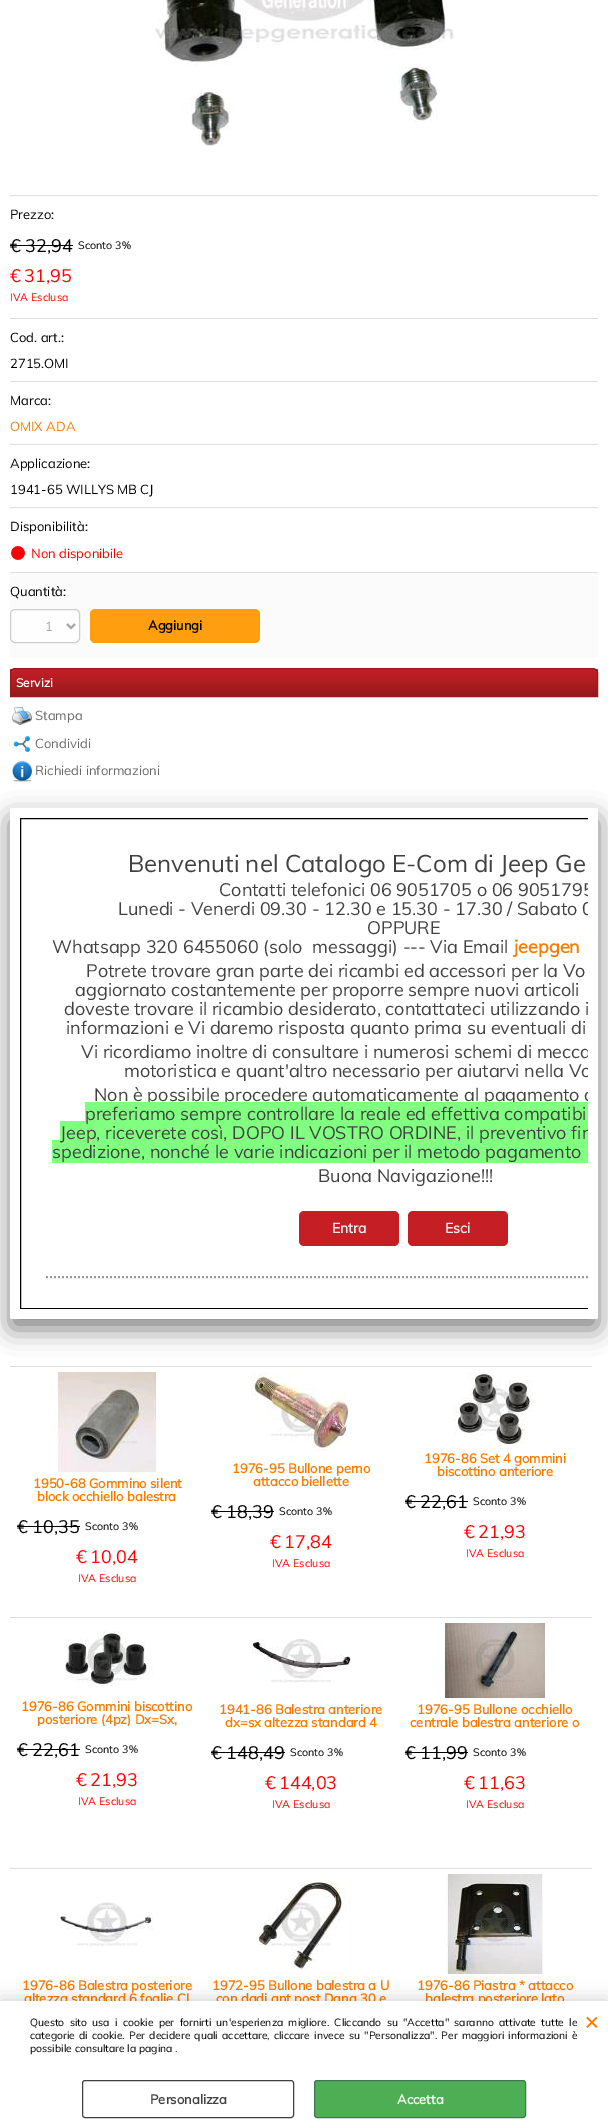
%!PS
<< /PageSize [608 2128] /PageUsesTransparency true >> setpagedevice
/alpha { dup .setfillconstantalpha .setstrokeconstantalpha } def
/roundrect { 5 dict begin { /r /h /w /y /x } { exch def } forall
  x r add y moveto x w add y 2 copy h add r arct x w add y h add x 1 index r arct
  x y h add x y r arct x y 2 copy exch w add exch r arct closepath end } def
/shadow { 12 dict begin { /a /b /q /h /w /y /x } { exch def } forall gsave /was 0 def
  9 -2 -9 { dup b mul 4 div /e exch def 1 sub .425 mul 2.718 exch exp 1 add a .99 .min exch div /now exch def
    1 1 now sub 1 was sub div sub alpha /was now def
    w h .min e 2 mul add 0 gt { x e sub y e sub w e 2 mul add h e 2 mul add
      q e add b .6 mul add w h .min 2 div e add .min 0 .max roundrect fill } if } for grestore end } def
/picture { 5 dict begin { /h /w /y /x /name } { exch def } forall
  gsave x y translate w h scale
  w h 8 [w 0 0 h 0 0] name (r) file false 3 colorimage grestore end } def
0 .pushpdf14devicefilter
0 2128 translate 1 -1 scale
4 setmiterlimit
1 setgray
0 0 608 2128 rectfill
(img1.rgb) 153 0 301 146 picture
0.867 setgray
10 195 588 1 rectfill
/Muli-Regular [13 0 0 -13 0 0] selectfont
0 setgray
10 219 moveto (Prezzo:) show
/Muli-Regular [18 0 0 -18 0 0] selectfont
10 252 moveto (€ 32,94) show
10 245 63 1 rectfill
/Muli-Regular [10.75 0 0 -10.75 0 0] selectfont
78 249 moveto (Sconto 3%) show
/Muli-Regular [18 0 0 -18 0 0] selectfont
1 0 0 setrgbcolor
10 282 moveto (€) show
24 282 moveto (31,95) show
/Muli-Regular [10.75 0 0 -10.75 0 0] selectfont
10 301 moveto (IVA Esclusa) show
0.867 setgray
10 318 588 1 rectfill
/Muli-Regular [13 0 0 -13 0 0] selectfont
0 setgray
10 342 moveto (Cod. art.:) show
10 368 moveto (2715.OMI) show
0.867 setgray
10 381 588 1 rectfill
0 setgray
10 405 moveto (Marca:) show
0.976 0.486 0 setrgbcolor
10 431 moveto (OMIX ADA) show
0.867 setgray
10 444 588 1 rectfill
0 setgray
10 468 moveto (Applicazione:) show
10 494 moveto (1941-65 WILLYS MB CJ) show
0.867 setgray
10 507 588 1 rectfill
0 setgray
10 531 moveto (Disponibilità:) show
(img2.rgb) 11 546 14 14 picture
1 0 0 setrgbcolor
31 558 moveto (Non disponibile) show
0.984 setgray
10 573 588 85 rectfill
0.867 setgray
10 572 588 1 rectfill
0 setgray
10 596 moveto (Quantità:) show
0.996 setgray
10.5 609.5 69 33 4.5 roundrect gsave fill grestore
0.808 setgray
stroke
0.647 setgray
2 setlinewidth
newpath 67 624 moveto 71 628 lineto 75 624 lineto stroke
45 631 moveto (1) show
1 0.624 0.063 setrgbcolor
90 609 170 34 5 roundrect fill
/Muli-Bold [13 0 0 -13 0 0] selectfont
0 setgray
148 630 moveto (Aggiungi) show
gsave
newpath 15 668 moveto 593 668 lineto 596 668 598 670 598 673 curveto 598 697 lineto 10 697 lineto 10 673 lineto 10 670 12 668 15 668 curveto closepath clip newpath
gsave newpath 10 669 moveto 598 669 lineto 598 696 lineto 10 696 lineto closepath clip newpath
<< /ShadingType 2 /ColorSpace /DeviceRGB /Coords [304 669 304 696] /Extend [true true] /Function << /FunctionType 2 /Domain [0 1] /C0 [0.773 0.122 0.145] /C1 [0.588 0.102 0.114] /N 1 >> >> shfill grestore
grestore
0.588 0.102 0.114 setrgbcolor
1 setlinewidth
newpath 15 668.5 moveto 593 668.5 lineto 595.5 668.5 597.5 670.5 597.5 673 curveto 597.5 696.5 lineto 10.5 696.5 lineto 10.5 673 lineto 10.5 670.5 12.5 668.5 15 668.5 curveto closepath stroke
/Muli-Bold [12 0 0 -12 0 0] selectfont
1 setgray
16 687 moveto (Servizi) show
(img3.rgb) 12 707 20 18 picture
/Muli-Regular [13 0 0 -13 0 0] selectfont
0.42 0.412 0.412 setrgbcolor
35 720 moveto (Stampa) show
(img4.rgb) 13 736 17 16 picture
35 748 moveto (Condividi) show
(img5.rgb) 12 761 20 21 picture
35 775 moveto (Richiedi informazioni) show
0.867 setgray
10 1366 582 1 rectfill
10 1617 582 1 rectfill
(img6.rgb) 57 1372 100 100 picture
/Muli-Bold [13 0 0 -13 0 0] selectfont
0.976 0.486 0 setrgbcolor
33 1488 moveto (1950-68 Gommino silent) show
37 1501 moveto (block occhiello balestra) show
/Muli-Regular [18 0 0 -18 0 0] selectfont
0 setgray
17 1533 moveto (€ 10,35) show
17 1526 63 1 rectfill
/Muli-Regular [10.75 0 0 -10.75 0 0] selectfont
85 1530 moveto (Sconto 3%) show
/Muli-Regular [18 0 0 -18 0 0] selectfont
1 0 0 setrgbcolor
76 1563 moveto (€) show
90 1563 moveto (10,04) show
/Muli-Regular [10.75 0 0 -10.75 0 0] selectfont
78 1582 moveto (IVA Esclusa) show
(img7.rgb) 251 1372 100 80 picture
/Muli-Bold [13 0 0 -13 0 0] selectfont
0.976 0.486 0 setrgbcolor
232 1473 moveto (1976-95 Bullone perno) show
253 1486 moveto (attacco biellette) show
/Muli-Regular [18 0 0 -18 0 0] selectfont
0 setgray
211 1518 moveto (€ 18,39) show
211 1511 63 1 rectfill
/Muli-Regular [10.75 0 0 -10.75 0 0] selectfont
279 1515 moveto (Sconto 3%) show
/Muli-Regular [18 0 0 -18 0 0] selectfont
1 0 0 setrgbcolor
270 1548 moveto (€) show
284 1548 moveto (17,84) show
/Muli-Regular [10.75 0 0 -10.75 0 0] selectfont
272 1567 moveto (IVA Esclusa) show
(img8.rgb) 453 1372 80 72 picture
/Muli-Bold [13 0 0 -13 0 0] selectfont
0.976 0.486 0 setrgbcolor
424 1463 moveto (1976-86 Set 4 gommini) show
437 1476 moveto (biscottino anteriore) show
/Muli-Regular [18 0 0 -18 0 0] selectfont
0 setgray
405 1508 moveto (€ 22,61) show
405 1501 63 1 rectfill
/Muli-Regular [10.75 0 0 -10.75 0 0] selectfont
473 1505 moveto (Sconto 3%) show
/Muli-Regular [18 0 0 -18 0 0] selectfont
1 0 0 setrgbcolor
464 1538 moveto (€) show
478 1538 moveto (21,93) show
/Muli-Regular [10.75 0 0 -10.75 0 0] selectfont
466 1557 moveto (IVA Esclusa) show
0.867 setgray
10 1868 582 1 rectfill
(img9.rgb) 65 1631 88 56 picture
/Muli-Bold [13 0 0 -13 0 0] selectfont
0.976 0.486 0 setrgbcolor
21 1711 moveto (1976-86 Gommini biscottino) show
gsave
17 1700 180 26 rectclip
37 1724 moveto (posteriore \(4pz\) Dx=Sx,) show
grestore
/Muli-Regular [18 0 0 -18 0 0] selectfont
0 setgray
17 1756 moveto (€ 22,61) show
17 1749 63 1 rectfill
/Muli-Regular [10.75 0 0 -10.75 0 0] selectfont
85 1753 moveto (Sconto 3%) show
/Muli-Regular [18 0 0 -18 0 0] selectfont
1 0 0 setrgbcolor
76 1786 moveto (€) show
90 1786 moveto (21,93) show
/Muli-Regular [10.75 0 0 -10.75 0 0] selectfont
78 1805 moveto (IVA Esclusa) show
(img10.rgb) 251 1639 100 44 picture
/Muli-Bold [13 0 0 -13 0 0] selectfont
0.976 0.486 0 setrgbcolor
219 1714 moveto (1941-86 Balestra anteriore) show
225 1727 moveto (dx=sx altezza standard 4) show
/Muli-Regular [18 0 0 -18 0 0] selectfont
0 setgray
211 1759 moveto (€ 148,49) show
211 1752 74 1 rectfill
/Muli-Regular [10.75 0 0 -10.75 0 0] selectfont
290 1756 moveto (Sconto 3%) show
/Muli-Regular [18 0 0 -18 0 0] selectfont
1 0 0 setrgbcolor
265 1789 moveto (€) show
279 1789 moveto (144,03) show
/Muli-Regular [10.75 0 0 -10.75 0 0] selectfont
272 1808 moveto (IVA Esclusa) show
(img11.rgb) 445 1623 100 75 picture
/Muli-Bold [13 0 0 -13 0 0] selectfont
0.976 0.486 0 setrgbcolor
417 1714 moveto (1976-95 Bullone occhiello) show
410 1727 moveto (centrale balestra anteriore o) show
/Muli-Regular [18 0 0 -18 0 0] selectfont
0 setgray
405 1759 moveto (€ 11,99) show
405 1752 63 1 rectfill
/Muli-Regular [10.75 0 0 -10.75 0 0] selectfont
473 1756 moveto (Sconto 3%) show
/Muli-Regular [18 0 0 -18 0 0] selectfont
1 0 0 setrgbcolor
464 1789 moveto (€) show
478 1789 moveto (11,63) show
/Muli-Regular [10.75 0 0 -10.75 0 0] selectfont
466 1808 moveto (IVA Esclusa) show
(img12.rgb) 57 1902 96 44 picture
/Muli-Bold [13 0 0 -13 0 0] selectfont
0.976 0.486 0 setrgbcolor
22 1990 moveto (1976-86 Balestra posteriore) show
24 2003 moveto (altezza standard 6 foglie CJ) show
(img13.rgb) 257 1879 94 95 picture
212 1990 moveto (1972-95 Bullone balestra a U) show
216 2003 moveto (con dadi ant post Dana 30 e) show
(img14.rgb) 445 1874 98 100 picture
417 1990 moveto (1976-86 Piastra * attacco) show
425 2003 moveto (balestra posteriore lato) show
0 setgray
10 818 588 511 2 12.5 0.5 shadow
1 setgray
10 808 588 511 2 roundrect fill
gsave
20 818 568 491 rectclip
0 setgray
20.5 818.5 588 490 rectstroke
grestore
/Muli-Regular [24 0 0 -24 0 0] selectfont
0.259 0.255 0.255 setrgbcolor
128 872 moveto (Benvenuti nel Catalogo E-Com di Jeep Ge) show
gsave
20 818 568 491 rectclip
/Muli-Regular [18 0 0 -18 0 0] selectfont
219 896 moveto (Contatti telefonici 06 9051705 o 06 9051795) show
118 915 moveto (Lunedi - Venerdi 09.30 - 12.30 e 15.30 - 17.30 / Sabato 0) show
grestore
/Muli-Regular [18 0 0 -18 0 0] selectfont
367 934 moveto (OPPURE) show
52 953 moveto (Whatsapp 320 6455060 \(solo  messaggi\) --- Via Email) show
/Muli-Bold [18 0 0 -18 0 0] selectfont
0.976 0.486 0 setrgbcolor
514 953 moveto (jeepgen) show
/Muli-Regular [18 0 0 -18 0 0] selectfont
0.259 0.255 0.255 setrgbcolor
86 977 moveto (Potrete trovare gran parte dei ricambi ed accessori per la Vo) show
75 996 moveto (aggiornato costantemente per proporre sempre nuovi articoli) show
gsave
20 818 568 491 rectclip
64 1015 moveto (doveste trovare il ricambio desiderato, contattateci utilizzando i) show
grestore
66 1034 moveto (informazioni e Vi daremo risposta quanto prima su eventuali di) show
gsave
20 818 568 491 rectclip
81 1058 moveto (Vi ricordiamo inoltre di consultare i numerosi schemi di mecca) show
124 1077 moveto (motoristica e quant'altro necessario per aiutarvi nella Vo) show
94 1101 moveto (Non è possibile procedere automaticamente al pagamento d) show
grestore
0.502 1 0.502 setrgbcolor
85 1102 503 19 rectfill
60 1121 528 19 rectfill
0.259 0.255 0.255 setrgbcolor
85 1120 moveto (preferiamo sempre controllare la reale ed effettiva compatibi) show
0.502 1 0.502 setrgbcolor
52 1140 536 23 rectfill
0.259 0.255 0.255 setrgbcolor
60 1139 moveto (Jeep, riceverete) show
gsave
20 818 568 491 rectclip
191 1139 moveto (così, DOPO IL VOSTRO ORDINE, il preventivo fin) show
grestore
52 1158 moveto (spedizione, nonché le varie indicazioni per il metodo pagamento) show
318 1182 moveto (Buona Navigazione!!!) show
0.773 0.122 0.145 setrgbcolor
299 1211 100 35 5 roundrect fill
/Muli-Bold [14 0 0 -14 0 0] selectfont
0.933 setgray
332 1233 moveto (Entra) show
0.773 0.122 0.145 setrgbcolor
408 1211 100 35 5 roundrect fill
0.933 setgray
445 1233 moveto (Esci) show
gsave
20 818 568 491 rectclip
0.6 setgray
2 setlinewidth
[2 2] 0 setdash
newpath 46 1277 moveto 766 1277 lineto stroke
grestore
0 setgray
0 2001 608 127 0 9 0.2 shadow
1 setgray
0 2001 608 127 rectfill
/Muli-Regular [10.4 0 0 -10.4 0 0] selectfont
0 setgray
30 2026 moveto 2.6 0 32 (Questo sito usa i cookie per fornirti un'esperienza migliore. Cliccando su "Accetta" saranno attivate tutte le) widthshow
30 2039 moveto 1.5 0 32 (categorie di cookie. Per decidere quali accettare, cliccare invece su "Personalizza". Per maggiori informazioni è) widthshow
30 2052 moveto (possibile consultare la pagina .) show
/Muli-Bold [22 0 0 -22 0 0] selectfont
0.976 0.486 0 setrgbcolor
585 2029 moveto (×) show
0.259 0.255 0.255 setrgbcolor
82.5 2080.5 211 37 2.5 roundrect stroke
/Muli-Bold [13 0 0 -13 0 0] selectfont
150 2104 moveto (Personalizza) show
0.306 0.682 0.329 setrgbcolor
314.5 2080.5 211 37 2.5 roundrect gsave fill grestore
0.247 0.467 0.333 setrgbcolor
stroke
1 setgray
397 2104 moveto (Accetta) show
.poppdf14devicefilter showpage
